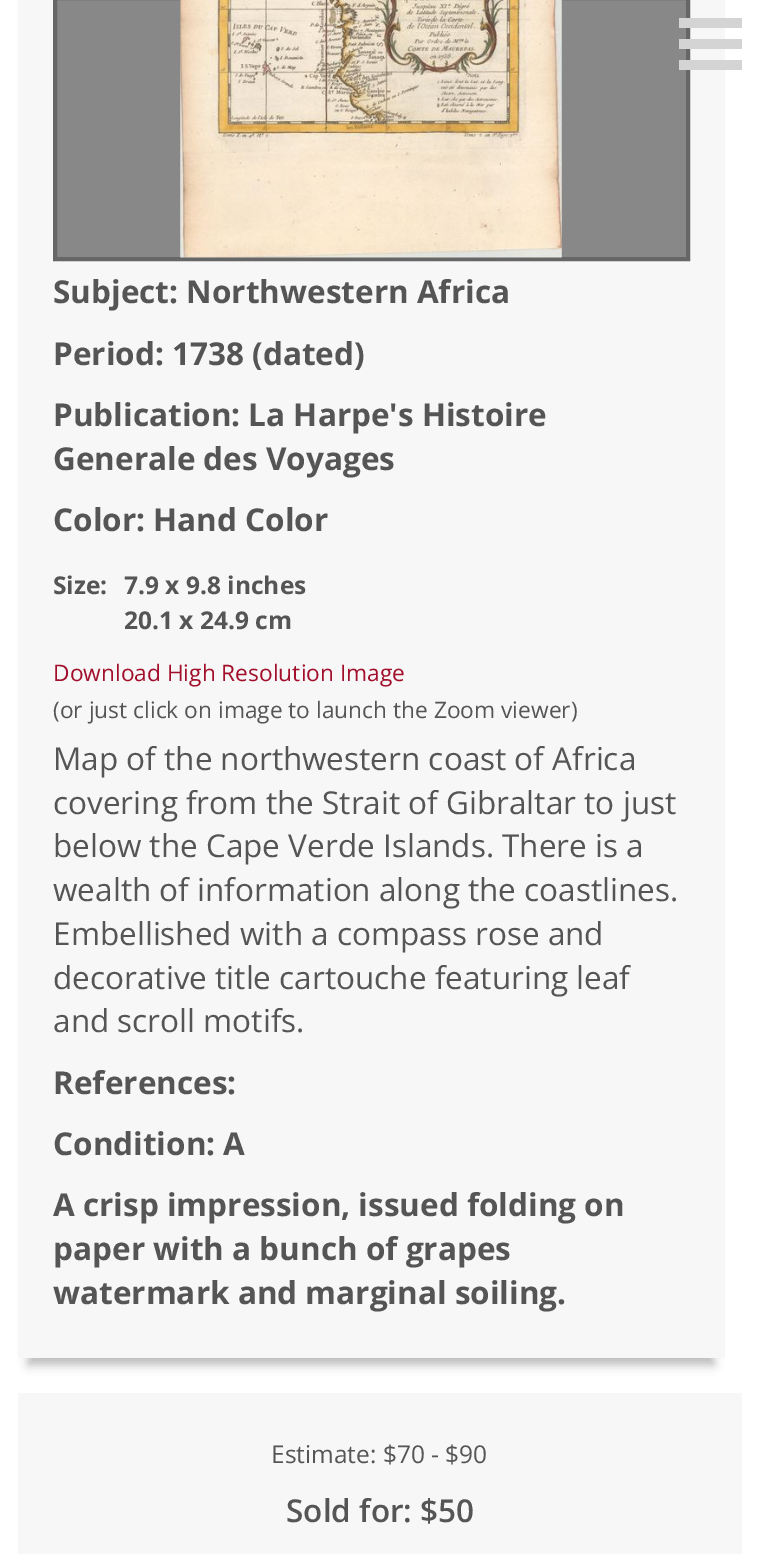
%!PS
<< /PageSize [758 1554] /PageUsesTransparency true >> setpagedevice
/alpha { dup .setfillconstantalpha .setstrokeconstantalpha } def
/roundrect { 5 dict begin { /r /h /w /y /x } { exch def } forall
  x r add y moveto x w add y 2 copy h add r arct x w add y h add x 1 index r arct
  x y h add x y r arct x y 2 copy exch w add exch r arct closepath end } def
/shadow { 12 dict begin { /a /b /q /h /w /y /x } { exch def } forall gsave /was 0 def
  9 -2 -9 { dup b mul 4 div /e exch def 1 sub .425 mul 2.718 exch exp 1 add a .99 .min exch div /now exch def
    1 1 now sub 1 was sub div sub alpha /was now def
    w h .min e 2 mul add 0 gt { x e sub y e sub w e 2 mul add h e 2 mul add
      q e add b .6 mul add w h .min 2 div e add .min 0 .max roundrect fill } if } for grestore end } def
/picture { 5 dict begin { /h /w /y /x /name } { exch def } forall
  gsave x y translate w h scale
  w h 8 [w 0 0 h 0 0] name (r) file false 3 colorimage grestore end } def
0 .pushpdf14devicefilter
0 1554 translate 1 -1 scale
4 setmiterlimit
1 setgray
0 0 758 1554 rectfill
0.733 setgray
28 -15 686 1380 0 5 1 shadow
0.969 setgray
18 0 707 1358 rectfill
0.533 setgray
newpath 55 -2 moveto 688 -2 lineto 688 259 lineto 55 259 lineto closepath gsave fill grestore
0.4 setgray
4 setlinewidth
stroke
0.831 setgray
679 18 63 10 rectfill
679 39 63 10 rectfill
679 60 63 10 rectfill
(img1.rgb) 180 0 382 258 picture
/OpenSans-Bold [31.5 0 0 -31.5 0 0] selectfont
0.333 setgray
53 303 moveto (Subject: Northwestern Africa) show
53 365 moveto (Period: 1738 \(dated\)) show
53 426 moveto (Publication: La Harpe's Histoire) show
53 470 moveto (Generale des Voyages) show
53 531 moveto (Color: Hand Color) show
/OpenSans-Bold [24.5 0 0 -24.5 0 0] selectfont
53 594 moveto (Size:) show
124 594 moveto (7.9 x 9.8 inches) show
124 629 moveto (20.1 x 24.9 cm) show
/OpenSans-Regular [22.75 0 0 -22.75 0 0] selectfont
0.631 0.059 0.169 setrgbcolor
53 681 moveto (Download High Resolution Image) show
0.333 setgray
53 718 moveto (\(or just click on image to launch the Zoom viewer\)) show
/OpenSans-Regular [31.5 0 0 -31.5 0 0] selectfont
53 770 moveto (Map of the northwestern coast of Africa) show
53 814 moveto (covering from the Strait of Gibraltar to just) show
53 857 moveto (below the Cape Verde Islands. There is a) show
53 901 moveto (wealth of information along the coastlines.) show
53 945 moveto (Embellished with a compass rose and) show
53 989 moveto (decorative title cartouche featuring leaf) show
53 1032 moveto (and scroll motifs.) show
/OpenSans-Bold [31.5 0 0 -31.5 0 0] selectfont
53 1094 moveto (References:) show
53 1155 moveto (Condition: A) show
53 1216 moveto (A crisp impression, issued folding on) show
53 1260 moveto (paper with a bunch of grapes) show
53 1304 moveto (watermark and marginal soiling.) show
0.969 setgray
18 1393 724 161 rectfill
/OpenSans-Regular [24.5 0 0 -24.5 0 0] selectfont
0.333 setgray
271 1463 moveto (Estimate: $70 - $90) show
/OpenSans-SemiBold [31.5 0 0 -31.5 0 0] selectfont
286 1522 moveto (Sold for: $50) show
.poppdf14devicefilter showpage
